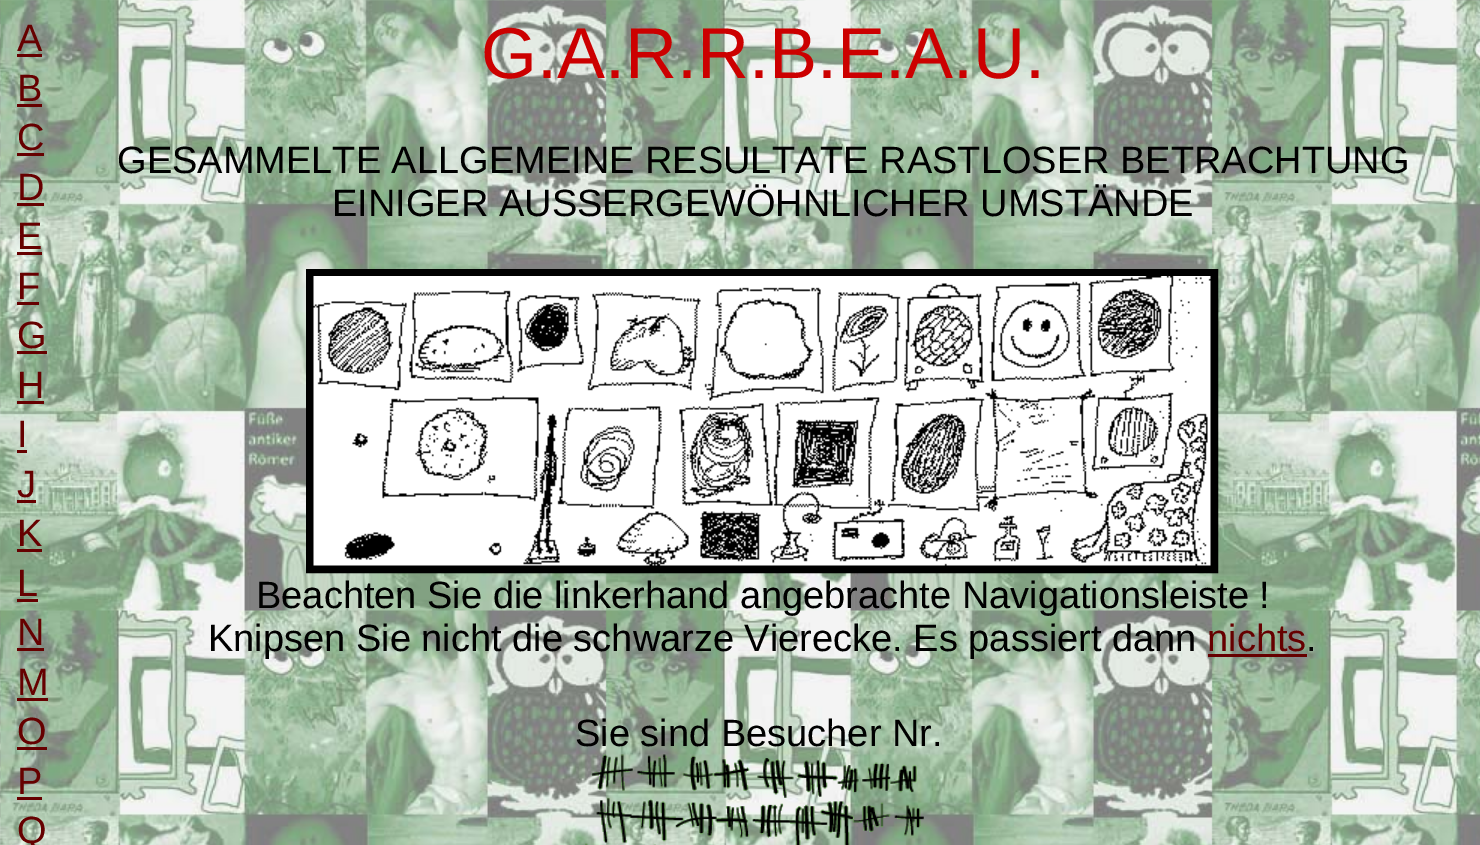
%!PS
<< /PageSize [1480 845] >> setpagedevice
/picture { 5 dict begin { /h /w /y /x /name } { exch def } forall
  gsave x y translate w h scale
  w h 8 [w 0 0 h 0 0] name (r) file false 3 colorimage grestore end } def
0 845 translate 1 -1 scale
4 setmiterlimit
1 setgray
0 0 1480 845 rectfill
(img1.rgb) 0 0 1480 845 picture
/LiberationSans-Regular [38 0 0 -38 0 0] selectfont
0.4 0 0 setrgbcolor
17 51 moveto (A) show
17 54 25 3 rectfill
17 101 moveto (B) show
17 104 25 3 rectfill
17 150 moveto (C) show
17 153 27 3 rectfill
17 200 moveto (D) show
17 203 27 3 rectfill
17 249 moveto (E) show
17 252 25 3 rectfill
17 299 moveto (F) show
17 302 22 3 rectfill
17 348 moveto (G) show
17 351 30 3 rectfill
17 398 moveto (H) show
17 401 27 3 rectfill
17 447 moveto (I) show
17 450 10 3 rectfill
17 497 moveto (J) show
17 500 19 3 rectfill
17 546 moveto (K) show
17 549 25 3 rectfill
17 596 moveto (L) show
17 599 21 3 rectfill
17 645 moveto (N) show
17 648 27 3 rectfill
17 695 moveto (M) show
17 698 31 3 rectfill
17 744 moveto (O) show
17 747 30 3 rectfill
17 794 moveto (P) show
17 797 25 3 rectfill
17 843 moveto (Q) show
/LiberationSans-Regular [72 0 0 -72 0 0] selectfont
0.8 0 0 setrgbcolor
481 78 moveto (G.A.R.R.B.E.A.U.) show
/LiberationSans-Regular [38 0 0 -38 0 0] selectfont
0 setgray
117 173 moveto (GESAMMELTE ALLGEMEINE RESULTATE RASTLOSER BETRACHTUNG) show
332 216 moveto (EINIGER AUSSERGEWÖHNLICHER UMSTÄNDE) show
8 setlinewidth
310 273 904 296 rectstroke
(img2.rgb) 313 276 898 290 picture
256 608 moveto (Beachten Sie die linkerhand angebrachte Navigationsleiste !) show
208 651 moveto (Knipsen Sie nicht die schwarze Vierecke. Es passiert dann) show
0.4 0 0 setrgbcolor
1207 651 moveto (nichts) show
1208 654 99 3 rectfill
0 setgray
1306 651 moveto (.) show
575 746 moveto (Sie sind Besucher Nr.) show
(img3.rgb) 585 754 339 91 picture
showpage
